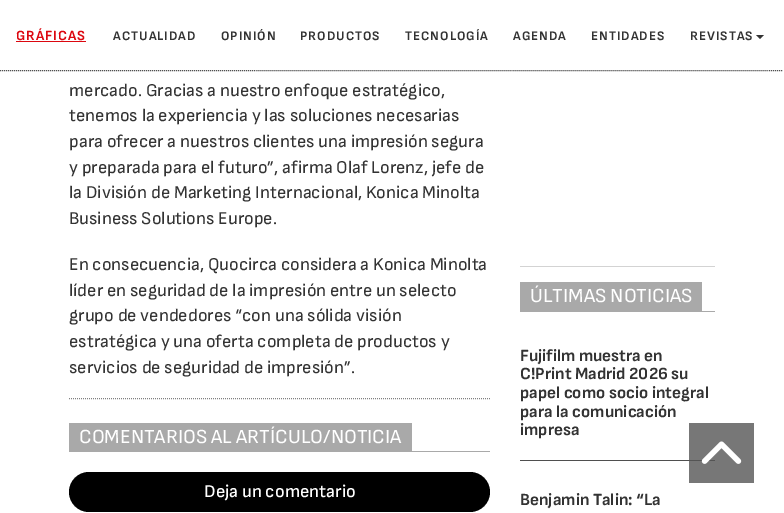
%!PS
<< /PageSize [784 513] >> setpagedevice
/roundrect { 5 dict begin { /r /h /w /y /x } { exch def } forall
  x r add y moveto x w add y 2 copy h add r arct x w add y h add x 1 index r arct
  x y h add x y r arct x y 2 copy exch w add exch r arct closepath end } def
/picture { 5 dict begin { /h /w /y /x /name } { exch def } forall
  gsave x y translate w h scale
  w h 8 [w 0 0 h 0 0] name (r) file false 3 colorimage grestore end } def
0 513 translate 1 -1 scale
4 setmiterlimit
1 setgray
0 0 784 513 rectfill
0.467 setgray
689 423 65 60 rectfill
0.31 setgray
[1 1] 0 setdash
newpath 0 70.5 moveto 784 70.5 lineto stroke
/SofiaSans-Bold [14 0 0 -14 0 0] selectfont
0.863 0.027 0.059 setrgbcolor
16 40 moveto 1 0 (GRÁFICAS) ashow
16 41 70 1 rectfill
/SofiaSans-Bold [13 0 0 -13 0 0] selectfont
0.2 setgray
113 40 moveto 1 0 (ACTUALIDAD) ashow
221 40 moveto 1 0 (OPINIÓN) ashow
300 40 moveto 1 0 (PRODUCTOS) ashow
405 40 moveto 1 0 (TECNOLOGÍA) ashow
513 40 moveto 1 0 (AGENDA) ashow
591 40 moveto 1 0 (ENTIDADES) ashow
690 40 moveto 1 0 (REVISTAS) ashow
newpath 756 35 moveto 764 35 lineto 760 39 lineto closepath fill
0.502 setgray
newpath 69 398.5 moveto 490 398.5 lineto stroke
/SofiaSans-Regular [18 0 0 -18 0 0] selectfont
0.2 setgray
69 96 moveto (mercado. Gracias a nuestro enfoque estratégico,) show
69 121 moveto (tenemos la experiencia y las soluciones necesarias) show
69 147 moveto (para ofrecer a nuestros clientes una impresión segura) show
69 173 moveto (y preparada para el futuro”, afirma Olaf Lorenz, jefe de) show
69 198 moveto (la División de Marketing Internacional, Konica Minolta) show
69 224 moveto (Business Solutions Europe.) show
69 270 moveto (En consecuencia, Quocirca considera a Konica Minolta) show
69 296 moveto (líder en seguridad de la impresión entre un selecto) show
69 321 moveto (grupo de vendedores “con una sólida visión) show
69 347 moveto (estratégica y una oferta completa de productos y) show
69 373 moveto (servicios de seguridad de impresión”.) show
0.663 setgray
69 423 343 28 rectfill
/SofiaSans-Regular [20 0 0 -20 0 0] selectfont
1 setgray
79 443 moveto (COMENTARIOS AL ARTÍCULO/NOTICIA) show
0.663 setgray
69 451 421 1 rectfill
0 setgray
69 472 421 40 20 roundrect fill
/SofiaSans-Medium [18 0 0 -18 0 0] selectfont
1 setgray
204 497 moveto (Deja un comentario) show
0.827 setgray
520 266 195 1 rectfill
0.663 setgray
520 282 182 29 rectfill
/SofiaSans-Regular [20 0 0 -20 0 0] selectfont
1 setgray
530 302 moveto (ÚLTIMAS NOTICIAS) show
0.663 setgray
520 311 195 1 rectfill
0.31 setgray
520 460 169 1 rectfill
0.329 setgray
689 460 26 1 rectfill
/SofiaSans-Bold [17 0 0 -17 0 0] selectfont
0.2 setgray
520 361 moveto (Fujifilm muestra en) show
520 379 moveto (C!Print Madrid 2026 su) show
520 398 moveto (papel como socio integral) show
520 417 moveto (para la comunicación) show
520 435 moveto (impresa) show
520 505 moveto (Benjamin Talin: “La) show
(img1.rgb) 701 441 41 23 picture
showpage
